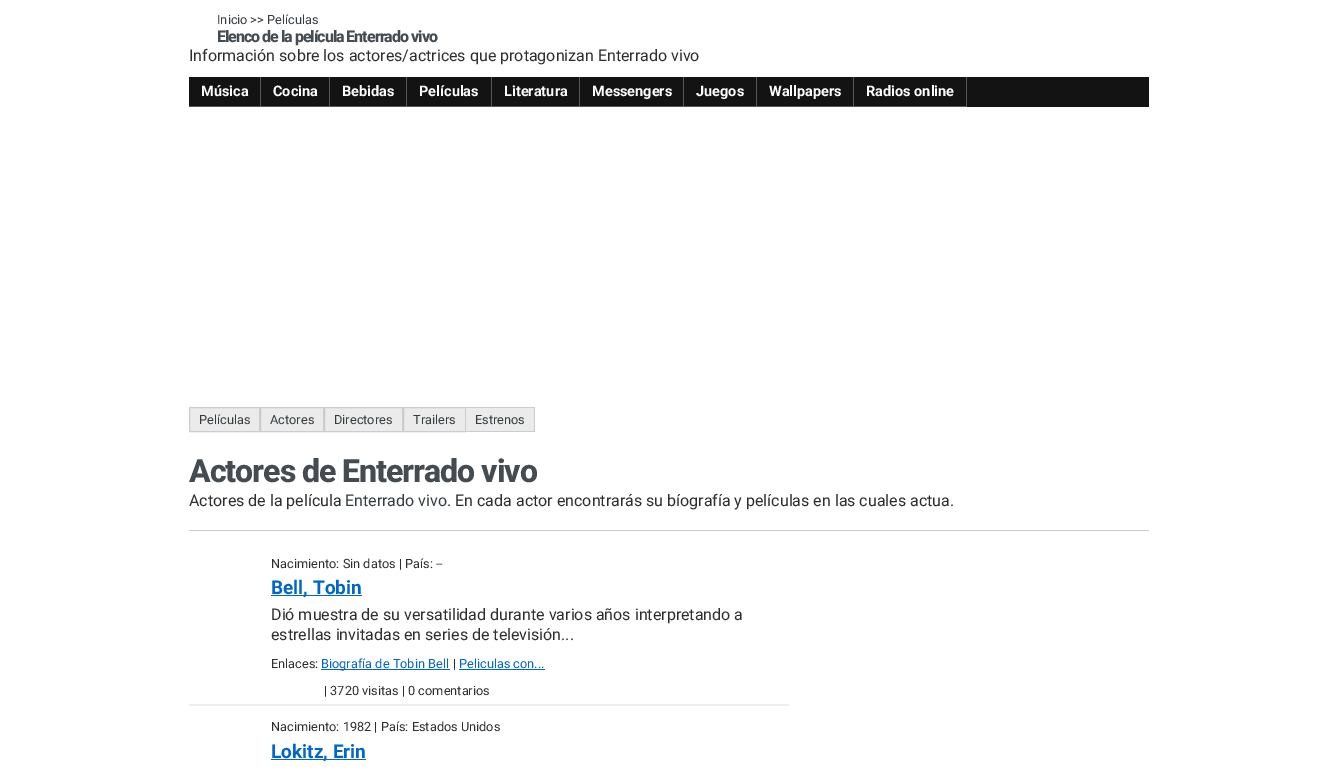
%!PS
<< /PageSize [1337 778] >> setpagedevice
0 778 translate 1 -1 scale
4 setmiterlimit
1 setgray
0 0 1337 778 rectfill
/Roboto-Regular [12.75 0 0 -12.75 0 0] selectfont
0.208 0.235 0.251 setrgbcolor
217 24 moveto (Inicio) show
0.176 0.184 0.184 setrgbcolor
250 24 moveto (>>) show
0.208 0.235 0.251 setrgbcolor
267 24 moveto (Películas) show
/Roboto-ExtraBold [16 0 0 -16 0 0] selectfont
0.267 0.294 0.318 setrgbcolor
217 42 moveto -1 0 (Elenco de la película Enterrado vivo) ashow
/Roboto-Regular [16 0 0 -16 0 0] selectfont
0.176 0.184 0.184 setrgbcolor
189 61 moveto (Información sobre los actores/actrices que protagonizan Enterrado vivo) show
0.075 setgray
189 77 960 30 rectfill
0.345 setgray
260 77 1 30 rectfill
189 106 72 1 rectfill
/Roboto-Bold [14.5 0 0 -14.5 0 0] selectfont
1 setgray
201 96 moveto (Música) show
0.345 setgray
329 77 1 30 rectfill
261 106 69 1 rectfill
1 setgray
273 96 moveto (Cocina) show
0.345 setgray
406 77 1 30 rectfill
330 106 77 1 rectfill
1 setgray
342 96 moveto (Bebidas) show
0.345 setgray
491 77 1 30 rectfill
407 106 85 1 rectfill
1 setgray
419 96 moveto (Películas) show
0.345 setgray
579 77 1 30 rectfill
492 106 88 1 rectfill
1 setgray
504 96 moveto (Literatura) show
0.345 setgray
683 77 1 30 rectfill
580 106 104 1 rectfill
1 setgray
592 96 moveto (Messengers) show
0.345 setgray
756 77 1 30 rectfill
684 106 73 1 rectfill
1 setgray
696 96 moveto (Juegos) show
0.345 setgray
853 77 1 30 rectfill
757 106 97 1 rectfill
1 setgray
769 96 moveto (Wallpapers) show
0.345 setgray
966 77 1 30 rectfill
854 106 113 1 rectfill
1 setgray
866 96 moveto (Radios online) show
0.922 setgray
newpath 189.5 407.5 moveto 259.5 407.5 lineto 259.5 431.5 lineto 189.5 431.5 lineto closepath gsave fill grestore
0.8 setgray
stroke
/Roboto-Regular [12.75 0 0 -12.75 0 0] selectfont
0.208 0.235 0.251 setrgbcolor
199 424 moveto (Películas) show
0.922 setgray
newpath 260.5 407.5 moveto 323.5 407.5 lineto 323.5 431.5 lineto 260.5 431.5 lineto closepath gsave fill grestore
0.8 setgray
stroke
0.208 0.235 0.251 setrgbcolor
270 424 moveto (Actores) show
0.922 setgray
newpath 324.5 407.5 moveto 402.5 407.5 lineto 402.5 431.5 lineto 324.5 431.5 lineto closepath gsave fill grestore
0.8 setgray
stroke
0.208 0.235 0.251 setrgbcolor
334 424 moveto (Directores) show
0.922 setgray
newpath 403.5 407.5 moveto 465.5 407.5 lineto 465.5 431.5 lineto 403.5 431.5 lineto closepath gsave fill grestore
0.8 setgray
stroke
0.208 0.235 0.251 setrgbcolor
413 424 moveto (Trailers) show
0.922 setgray
466 408 68 23 rectfill
0.8 setgray
466 407 69 1 rectfill
534 407 1 25 rectfill
466 431 69 1 rectfill
0.208 0.235 0.251 setrgbcolor
475 424 moveto (Estrenos) show
0.8 setgray
189 530 960 1 rectfill
/Roboto-ExtraBold [32 0 0 -32 0 0] selectfont
0.267 0.294 0.318 setrgbcolor
189 482 moveto -1 0 (Actores de Enterrado vivo) ashow
/Roboto-Regular [16 0 0 -16 0 0] selectfont
0.176 0.184 0.184 setrgbcolor
189 506 moveto (Actores de la película) show
0.208 0.235 0.251 setrgbcolor
345 506 moveto (Enterrado vivo) show
0.176 0.184 0.184 setrgbcolor
447 506 moveto (. En cada actor encontrarás su bíografía y películas en las cuales actua.) show
0.933 setgray
189 704 600 2 rectfill
/Roboto-Regular [12.75 0 0 -12.75 0 0] selectfont
0.176 0.184 0.184 setrgbcolor
271 568 moveto (Nacimiento: Sin datos | País: --) show
0 0.4 0.8 setrgbcolor
271 595 91 1 rectfill
/Roboto-Bold [19 0 0 -19 0 0] selectfont
271 594 moveto (Bell, Tobin) show
/Roboto-Regular [16 0 0 -16 0 0] selectfont
0.176 0.184 0.184 setrgbcolor
271 620 moveto (Dió muestra de su versatilidad durante varios años interpretando a) show
271 640 moveto (estrellas invitadas en series de televisión...) show
/Roboto-Regular [12.75 0 0 -12.75 0 0] selectfont
271 668 moveto (Enlaces:) show
0 0.4 0.8 setrgbcolor
321 669 129 1 rectfill
321 668 moveto (Biografía de Tobin Bell) show
0.176 0.184 0.184 setrgbcolor
453 668 moveto (|) show
0 0.4 0.8 setrgbcolor
459 668 moveto (Peliculas con...) show
459 669 86 1 rectfill
0.176 0.184 0.184 setrgbcolor
324 695 moveto (| 3720 visitas | 0 comentarios) show
271 731 moveto (Nacimiento: 1982 | País: Estados Unidos) show
0 0.4 0.8 setrgbcolor
271 759 95 1 rectfill
/Roboto-Bold [19 0 0 -19 0 0] selectfont
271 758 moveto (Lokitz, Erin) show
showpage
